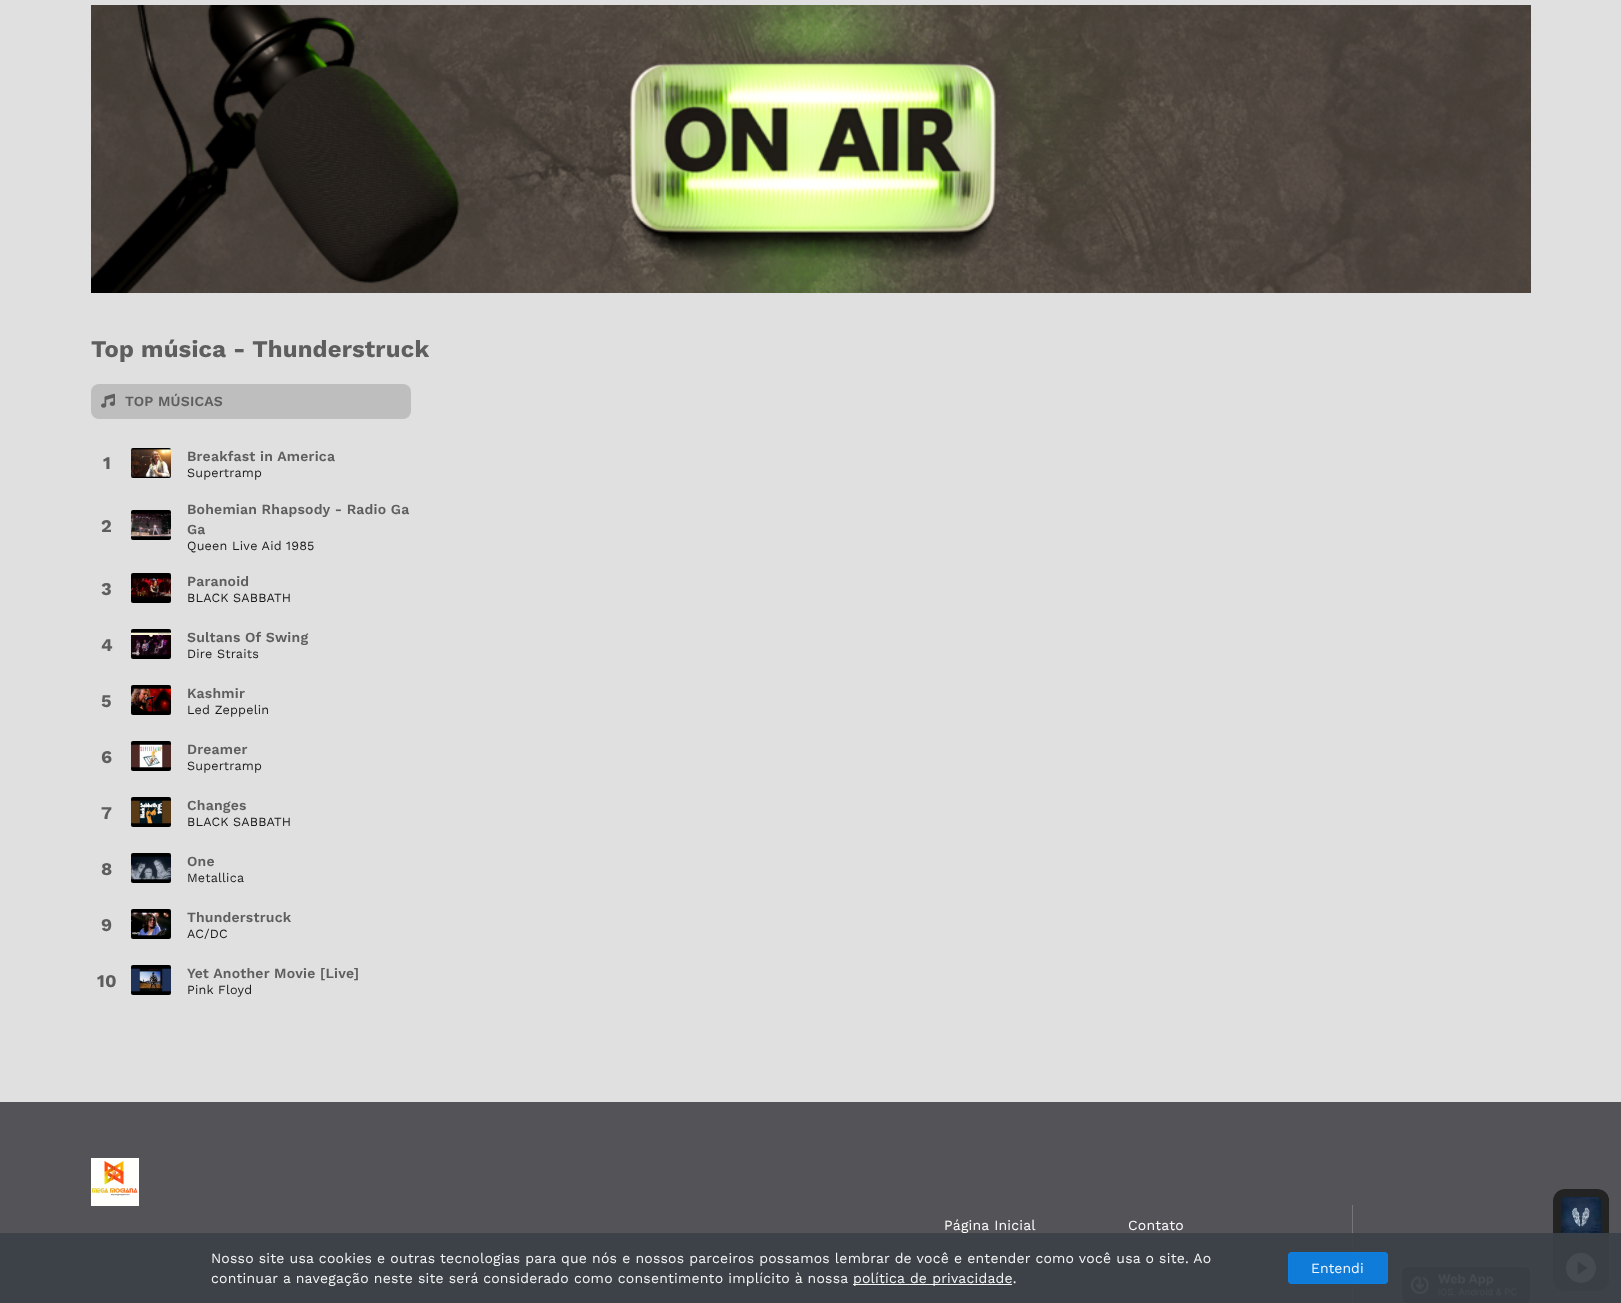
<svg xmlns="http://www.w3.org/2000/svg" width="1621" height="1303">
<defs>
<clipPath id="clip1"><rect x="1553" y="1189" width="56" height="102" rx="12"/></clipPath>
</defs>
<rect width="100%" height="100%" fill="#e0e0e0"/>
<image x="91" y="5" width="1440" height="288" href="media/1.png"/>
<text x="91" y="357" style="font-family:Work Sans;font-size:23.75px;font-weight:bold;letter-spacing:0.21px;fill:#5e5e5e">Top música - Thunderstruck</text>
<rect x="91" y="384" width="320" height="35" rx="8" fill="#bebebe"/>
<image x="101" y="393" width="14" height="15" href="media/2.png"/>
<text x="125" y="406" style="font-family:Work Sans;font-size:14px;font-weight:600;letter-spacing:0.21px;fill:#5e5e5e">TOP MÚSICAS</text>
<text x="103" y="469" style="font-family:Work Sans;font-size:18px;font-weight:bold;letter-spacing:0.21px;fill:#5e5e5e">1</text>
<image x="131" y="448" width="40" height="30" href="media/3.png"/>
<text x="187" y="461" style="font-family:Work Sans;font-size:14px;font-weight:600;letter-spacing:0.21px;fill:#5e5e5e">Breakfast in America</text>
<text x="187" y="477" style="font-family:Work Sans;font-size:12.6px;letter-spacing:0.21px;fill:#1a1a1a">Supertramp</text>
<text x="101" y="532" style="font-family:Work Sans;font-size:18px;font-weight:bold;letter-spacing:0.21px;fill:#5e5e5e">2</text>
<image x="131" y="510" width="40" height="30" href="media/4.png"/>
<text x="187" y="514" style="font-family:Work Sans;font-size:14px;font-weight:600;letter-spacing:0.21px;fill:#5e5e5e">Bohemian Rhapsody - Radio Ga</text>
<text x="187" y="534" style="font-family:Work Sans;font-size:14px;font-weight:600;letter-spacing:0.21px;fill:#5e5e5e">Ga</text>
<text x="187" y="550" style="font-family:Work Sans;font-size:12.6px;letter-spacing:0.21px;fill:#1a1a1a">Queen Live Aid 1985</text>
<text x="101" y="595" style="font-family:Work Sans;font-size:18px;font-weight:bold;letter-spacing:0.21px;fill:#5e5e5e">3</text>
<image x="131" y="573" width="40" height="30" href="media/5.png"/>
<text x="187" y="586" style="font-family:Work Sans;font-size:14px;font-weight:600;letter-spacing:0.21px;fill:#5e5e5e">Paranoid</text>
<text x="187" y="602" style="font-family:Work Sans;font-size:12.6px;letter-spacing:0.21px;fill:#1a1a1a">BLACK SABBATH</text>
<text x="101" y="651" style="font-family:Work Sans;font-size:18px;font-weight:bold;letter-spacing:0.21px;fill:#5e5e5e">4</text>
<image x="131" y="629" width="40" height="30" href="media/6.png"/>
<text x="187" y="642" style="font-family:Work Sans;font-size:14px;font-weight:600;letter-spacing:0.21px;fill:#5e5e5e">Sultans Of Swing</text>
<text x="187" y="658" style="font-family:Work Sans;font-size:12.6px;letter-spacing:0.21px;fill:#1a1a1a">Dire Straits</text>
<text x="101" y="707" style="font-family:Work Sans;font-size:18px;font-weight:bold;letter-spacing:0.21px;fill:#5e5e5e">5</text>
<image x="131" y="685" width="40" height="30" href="media/7.png"/>
<text x="187" y="698" style="font-family:Work Sans;font-size:14px;font-weight:600;letter-spacing:0.21px;fill:#5e5e5e">Kashmir</text>
<text x="187" y="714" style="font-family:Work Sans;font-size:12.6px;letter-spacing:0.21px;fill:#1a1a1a">Led Zeppelin</text>
<text x="101" y="763" style="font-family:Work Sans;font-size:18px;font-weight:bold;letter-spacing:0.21px;fill:#5e5e5e">6</text>
<image x="131" y="741" width="40" height="30" href="media/8.png"/>
<text x="187" y="754" style="font-family:Work Sans;font-size:14px;font-weight:600;letter-spacing:0.21px;fill:#5e5e5e">Dreamer</text>
<text x="187" y="770" style="font-family:Work Sans;font-size:12.6px;letter-spacing:0.21px;fill:#1a1a1a">Supertramp</text>
<text x="101" y="819" style="font-family:Work Sans;font-size:18px;font-weight:bold;letter-spacing:0.21px;fill:#5e5e5e">7</text>
<image x="131" y="797" width="40" height="30" href="media/9.png"/>
<text x="187" y="810" style="font-family:Work Sans;font-size:14px;font-weight:600;letter-spacing:0.21px;fill:#5e5e5e">Changes</text>
<text x="187" y="826" style="font-family:Work Sans;font-size:12.6px;letter-spacing:0.21px;fill:#1a1a1a">BLACK SABBATH</text>
<text x="101" y="875" style="font-family:Work Sans;font-size:18px;font-weight:bold;letter-spacing:0.21px;fill:#5e5e5e">8</text>
<image x="131" y="853" width="40" height="30" href="media/10.png"/>
<text x="187" y="866" style="font-family:Work Sans;font-size:14px;font-weight:600;letter-spacing:0.21px;fill:#5e5e5e">One</text>
<text x="187" y="882" style="font-family:Work Sans;font-size:12.6px;letter-spacing:0.21px;fill:#1a1a1a">Metallica</text>
<text x="101" y="931" style="font-family:Work Sans;font-size:18px;font-weight:bold;letter-spacing:0.21px;fill:#5e5e5e">9</text>
<image x="131" y="909" width="40" height="30" href="media/11.png"/>
<text x="187" y="922" style="font-family:Work Sans;font-size:14px;font-weight:600;letter-spacing:0.21px;fill:#5e5e5e">Thunderstruck</text>
<text x="187" y="938" style="font-family:Work Sans;font-size:12.6px;letter-spacing:0.21px;fill:#1a1a1a">AC/DC</text>
<text x="97" y="987" style="font-family:Work Sans;font-size:18px;font-weight:bold;letter-spacing:0.21px;fill:#5e5e5e">10</text>
<image x="131" y="965" width="40" height="30" href="media/12.png"/>
<text x="187" y="978" style="font-family:Work Sans;font-size:14px;font-weight:600;letter-spacing:0.21px;fill:#5e5e5e">Yet Another Movie [Live]</text>
<text x="187" y="994" style="font-family:Work Sans;font-size:12.6px;letter-spacing:0.21px;fill:#1a1a1a">Pink Floyd</text>
<rect y="1102" width="1621" height="201" fill="#545458"/>
<image x="91" y="1158" width="48" height="48" href="media/13.png"/>
<rect x="1352" y="1205" width="1" height="98" fill="#767679"/>
<text x="944" y="1230" style="font-family:Work Sans;font-size:14px;letter-spacing:0.21px;fill:#fff">Página Inicial</text>
<text x="1128" y="1230" style="font-family:Work Sans;font-size:14px;letter-spacing:0.21px;fill:#fff">Contato</text>
<image x="1401" y="1266" width="130" height="37" href="media/14.png"/>
<path d="M1565 1189h32c6.5 0 12 5.5 12 12v44h-56v-44c0-6.5 5.5-12 12-12z" fill="#232323"/>
<path d="M1553 1245h56v34c0 6.5-5.5 12-12 12h-32c-6.5 0-12-5.5-12-12z" fill="#151515"/>
<g clip-path="url(#clip1)">
<rect x="1601" y="1189" width="8" height="56" fill="#232323"/>
<rect x="1601" y="1245" width="8" height="46" fill="#151515"/>
</g>
<image x="1561" y="1197" width="40" height="40" href="media/15.png"/>
<circle cx="1581" cy="1268" r="15" fill="#fff"/>
<image x="1577" y="1261" width="11" height="14" href="media/16.png"/>
<rect y="1233" width="1621" height="70" fill="#3c4148f2"/>
<text x="211" y="1263" style="font-family:Work Sans;font-size:14px;letter-spacing:0.21px;fill:#f5f6f6">Nosso site usa cookies e outras tecnologias para que nós e nossos parceiros possamos lembrar de você e entender como você usa o site. Ao</text>
<text x="211" y="1283" style="font-family:Work Sans;font-size:14px;letter-spacing:0.21px;fill:#f5f6f6">continuar a navegação neste site será considerado como consentimento implícito à nossa</text>
<rect x="853" y="1284" width="159" height="1" fill="#f6f6f7"/>
<text x="853" y="1283" style="font-family:Work Sans;font-size:14px;letter-spacing:0.21px;fill:#f5f6f6">política de privacidade.</text>
<rect x="1288" y="1252" width="100" height="32" rx="4" fill="#107cda"/>
<rect x="1288.5" y="1252.5" width="99" height="31" rx="3.5" fill="none" stroke="#0e7fe2f2"/>
<text x="1311" y="1273" style="font-family:Work Sans;font-size:14px;fill:#f3f8fd">Entendi</text>
</svg>
